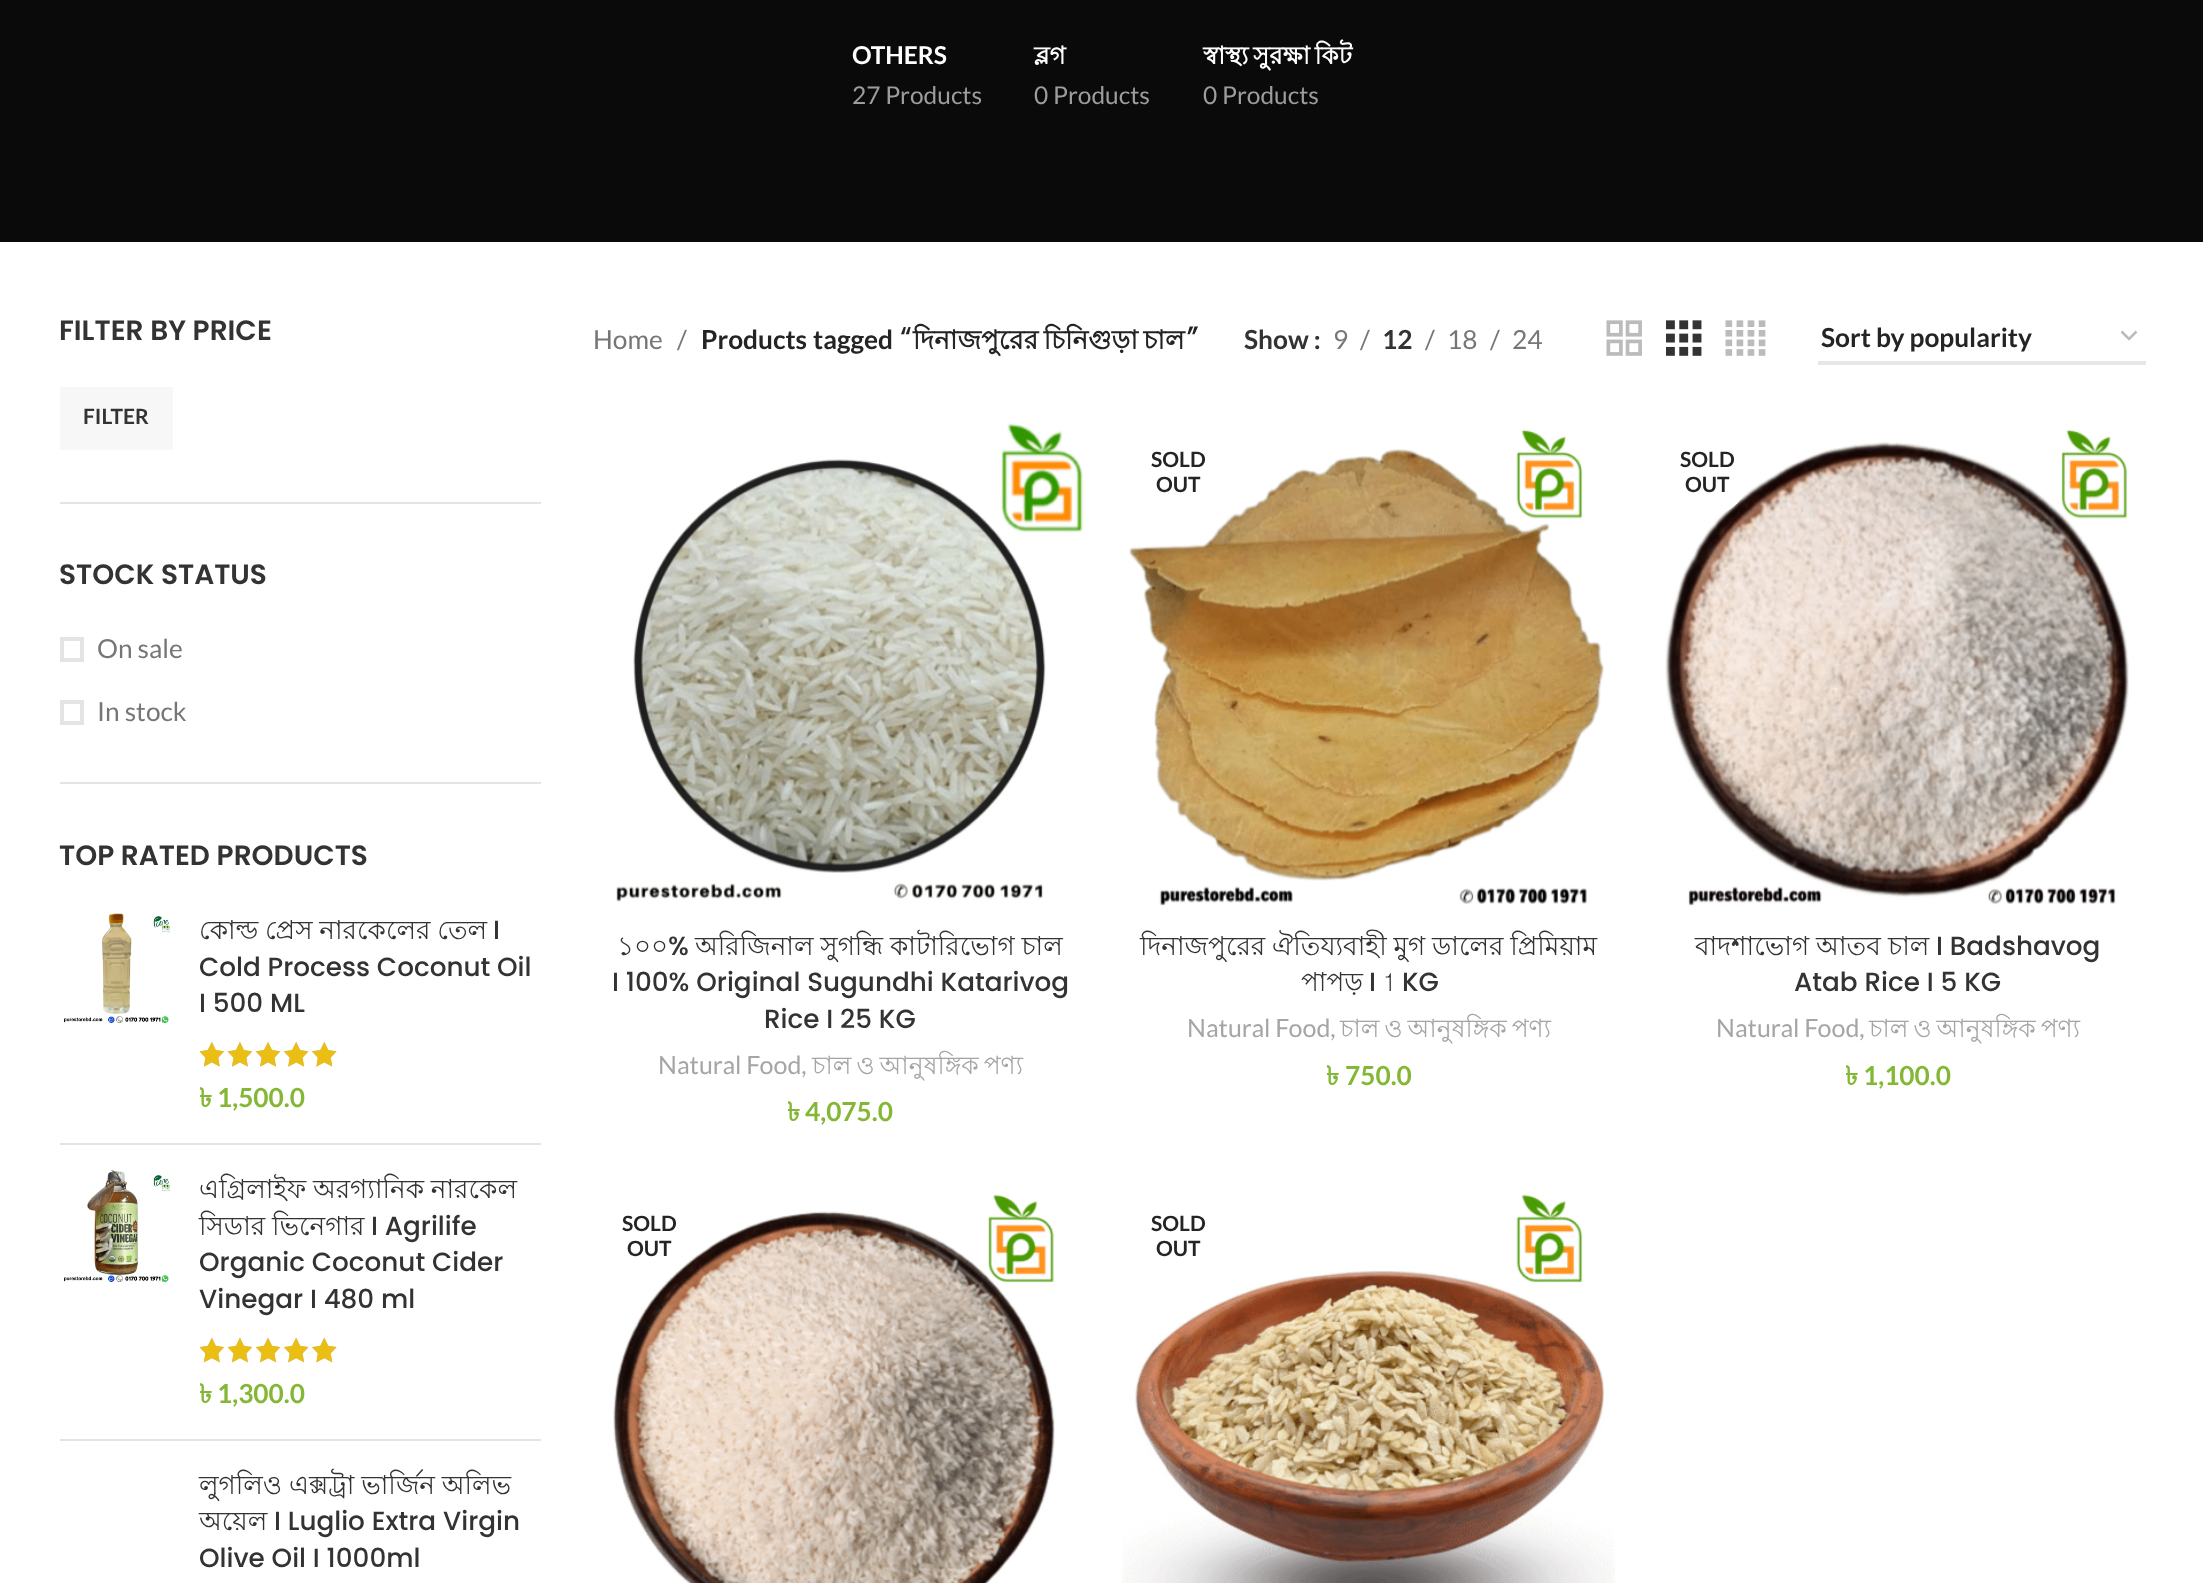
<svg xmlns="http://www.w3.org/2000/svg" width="2203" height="1583">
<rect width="100%" height="100%" fill="#fff"/>
<rect width="2203" height="242" fill="#0a0a0a"/>
<text x="852" y="64" style="font-family:Lato;font-size:24.5px;font-weight:bold;fill:#fff">OTHERS</text>
<text x="852" y="104" style="font-family:Lato;font-size:24.5px;fill:#9d9d9d">27 Products</text>
<text x="1034" y="64" style="font-family:Lohit Bengali;font-size:24.5px;font-weight:bold;fill:#fff">ব্লগ</text>
<text x="1034" y="104" style="font-family:Lato;font-size:24.5px;fill:#9d9d9d">0 Products</text>
<text x="1203" y="64" word-spacing="-2" style="font-family:Lohit Bengali;font-size:24.5px;font-weight:bold;fill:#fff">স্বাস্থ্য সুরক্ষা কিট</text>
<text x="1203" y="104" style="font-family:Lato;font-size:24.5px;fill:#9d9d9d">0 Products</text>
<rect x="60" y="502" width="481" height="2" fill="#e4e4e4"/>
<text x="59" y="340" style="font-family:Poppins;font-size:28px;font-weight:600;fill:#333">FILTER BY PRICE</text>
<rect x="60" y="387" width="113" height="63" fill="#f7f7f7"/>
<text x="83" y="424" style="font-family:Lato;font-size:21px;font-weight:bold;fill:#333">FILTER</text>
<rect x="60" y="782" width="481" height="2" fill="#e4e4e4"/>
<text x="59" y="584" style="font-family:Poppins;font-size:28px;font-weight:600;fill:#333">STOCK STATUS</text>
<rect x="62" y="639" width="20" height="21" fill="none" stroke="#e4e4e4" stroke-width="4"/>
<text x="97" y="658" style="font-family:Lato;font-size:26.25px;fill:#767676">On sale</text>
<rect x="62" y="702" width="20" height="21" fill="none" stroke="#e4e4e4" stroke-width="4"/>
<text x="97" y="721" style="font-family:Lato;font-size:26.25px;fill:#767676">In stock</text>
<text x="59" y="865" style="font-family:Poppins;font-size:28px;font-weight:600;fill:#333">TOP RATED PRODUCTS</text>
<rect x="60" y="1143" width="481" height="2" fill="#e4e4e4"/>
<image x="64" y="913" width="106" height="110" href="media/1.png"/>
<text x="199" y="939" word-spacing="-0.5" style="font-family:Lohit Bengali;font-size:26.25px;fill:#333">কোল্ড প্রেস নারকেলের তেল</text>
<text x="493" y="939" style="font-family:Poppins;font-size:26.25px;font-weight:500;fill:#333">I</text>
<text x="199" y="976" style="font-family:Poppins;font-size:26.25px;font-weight:500;fill:#333">Cold Process Coconut Oil</text>
<text x="199" y="1012" style="font-family:Poppins;font-size:26.25px;font-weight:500;fill:#333">I 500 ML</text>
<image x="199" y="1042" width="138" height="25" href="media/2.png"/>
<image x="200" y="1042" width="137" height="25" href="media/3.png"/>
<text x="199" y="1107" style="font-family:Lohit Bengali;font-size:26.25px;font-weight:bold;fill:#83b735">৳</text>
<text x="217" y="1107" style="font-family:Lato;font-size:26.25px;font-weight:bold;fill:#83b735">1,500.0</text>
<rect x="60" y="1439" width="481" height="2" fill="#e4e4e4"/>
<image x="64" y="1170" width="106" height="113" href="media/4.png"/>
<text x="199" y="1198" word-spacing="-0.5" style="font-family:Lohit Bengali;font-size:26.25px;fill:#333">এগ্রিলাইফ অরগ্যানিক নারকেল</text>
<text x="199" y="1235" style="font-family:Lohit Bengali;font-size:26.25px;fill:#333">সিডার</text>
<text x="272" y="1235" style="font-family:Lohit Bengali;font-size:26.25px;fill:#333">ভিনেগার</text>
<text x="371" y="1235" style="font-family:Poppins;font-size:26.25px;font-weight:500;fill:#333">I Agrilife</text>
<text x="199" y="1271" style="font-family:Poppins;font-size:26.25px;font-weight:500;fill:#333">Organic Coconut Cider</text>
<text x="199" y="1308" style="font-family:Poppins;font-size:26.25px;font-weight:500;fill:#333">Vinegar I 480 ml</text>
<image x="199" y="1338" width="138" height="25" href="media/6.png"/>
<image x="200" y="1337" width="137" height="26" href="media/5.png"/>
<text x="199" y="1403" style="font-family:Lohit Bengali;font-size:26.25px;font-weight:bold;fill:#83b735">৳</text>
<text x="217" y="1403" style="font-family:Lato;font-size:26.25px;font-weight:bold;fill:#83b735">1,300.0</text>
<text x="199" y="1494" word-spacing="-0.5" style="font-family:Lohit Bengali;font-size:26.25px;fill:#333">লুগলিও এক্সট্রা ভার্জিন অলিভ</text>
<text x="199" y="1530" style="font-family:Lohit Bengali;font-size:26.25px;fill:#333">অয়েল</text>
<text x="274" y="1530" style="font-family:Poppins;font-size:26.25px;font-weight:500;fill:#333">I Luglio Extra Virgin</text>
<text x="199" y="1567" style="font-family:Poppins;font-size:26.25px;font-weight:500;fill:#333">Olive Oil I 1000ml</text>
<text x="593" y="349" style="font-family:Lato;font-size:26.25px;fill:#767676">Home</text>
<text x="677" y="349" style="font-family:Lato;font-size:26.25px;fill:#767676">/</text>
<text x="701" y="349" style="font-family:Lato;font-size:26.25px;font-weight:bold;fill:#242424">Products</text>
<text x="813" y="349" style="font-family:Lato;font-size:26.25px;font-weight:bold;fill:#242424">tagged</text>
<text x="898" y="349" word-spacing="-2" style="font-family:Lohit Bengali;font-size:26.25px;font-weight:bold;fill:#242424">“দিনাজপুরের চিনিগুড়া চাল”</text>
<text x="1244" y="349" style="font-family:Lato;font-size:26.25px;font-weight:bold;fill:#333">Show :</text>
<text x="1333" y="349" style="font-family:Lato;font-size:26.25px;fill:#767676">9</text>
<text x="1360" y="349" style="font-family:Lato;font-size:26.25px;fill:#767676">/</text>
<text x="1382" y="349" style="font-family:Lato;font-size:26.25px;font-weight:bold;fill:#333">12</text>
<text x="1425" y="349" style="font-family:Lato;font-size:26.25px;fill:#767676">/</text>
<text x="1447" y="349" style="font-family:Lato;font-size:26.25px;fill:#767676">18</text>
<text x="1490" y="349" style="font-family:Lato;font-size:26.25px;fill:#767676">/</text>
<text x="1512" y="349" style="font-family:Lato;font-size:26.25px;fill:#767676">24</text>
<image x="1606" y="320" width="36" height="36" href="media/7.png"/>
<image x="1666" y="320" width="36" height="36" href="media/8.png"/>
<image x="1725" y="320" width="41" height="36" href="media/9.png"/>
<path d="M2121.5 331.5l7.5 7.5l7.5-7.5" fill="none" stroke="#bbb" stroke-width="2.5"/>
<rect x="1818" y="361" width="328" height="4" fill="#e6e6e6"/>
<text x="1821" y="347" style="font-family:Lato;font-size:26.25px;font-weight:bold;fill:#242424">Sort by popularity</text>
<image x="616" y="423" width="468" height="479" href="media/10.png"/>
<text x="617" y="955" style="font-family:Lohit Bengali;font-size:26.25px;fill:#333">১০০</text>
<text x="668" y="955" style="font-family:Poppins;font-size:26.25px;font-weight:500;fill:#333">%</text>
<text x="695" y="955" word-spacing="-0.5" style="font-family:Lohit Bengali;font-size:26.25px;fill:#333">অরিজিনাল সুগন্ধি কাটারিভোগ চাল</text>
<text x="612" y="991" style="font-family:Poppins;font-size:26.25px;font-weight:500;fill:#333">I 100% Original Sugundhi Katarivog</text>
<text x="764" y="1028" style="font-family:Poppins;font-size:26.25px;font-weight:500;fill:#333">Rice I 25 KG</text>
<text x="658" y="1074" style="font-family:Lato;font-size:25px;fill:#a5a5a5">Natural Food,</text>
<text x="812" y="1074" word-spacing="-2" style="font-family:Lohit Bengali;font-size:25px;fill:#a5a5a5">চাল ও আনুষঙ্গিক পণ্য</text>
<text x="787" y="1121" style="font-family:Lohit Bengali;font-size:26.25px;font-weight:bold;fill:#83b735">৳</text>
<text x="805" y="1121" style="font-family:Lato;font-size:26.25px;font-weight:bold;fill:#83b735">4,075.0</text>
<image x="1129" y="429" width="475" height="477" href="media/11.png"/>
<text x="1151" y="467" style="font-family:Lato;font-size:21px;font-weight:bold;fill:#242424">SOLD</text>
<text x="1156" y="492" style="font-family:Lato;font-size:21px;font-weight:bold;fill:#242424">OUT</text>
<text x="1140" y="955" word-spacing="-0.5" style="font-family:Lohit Bengali;font-size:26.25px;fill:#333">দিনাজপুরের ঐতিয্যবাহী মুগ ডালের প্রিমিয়াম</text>
<text x="1301" y="991" style="font-family:Lohit Bengali;font-size:26.25px;fill:#333">পাপড়</text>
<text x="1369" y="991" style="font-family:Poppins;font-size:26.25px;font-weight:500;fill:#333">I</text>
<text x="1381" y="991" style="font-family:Lohit Bengali;font-size:26.25px;fill:#333">1</text>
<text x="1402" y="991" style="font-family:Poppins;font-size:26.25px;font-weight:500;fill:#333">KG</text>
<text x="1187" y="1037" style="font-family:Lato;font-size:25px;fill:#a5a5a5">Natural Food,</text>
<text x="1340" y="1037" word-spacing="-2" style="font-family:Lohit Bengali;font-size:25px;fill:#a5a5a5">চাল ও আনুষঙ্গিক পণ্য</text>
<text x="1326" y="1085" style="font-family:Lohit Bengali;font-size:26.25px;font-weight:bold;fill:#83b735">৳</text>
<text x="1345" y="1085" style="font-family:Lato;font-size:26.25px;font-weight:bold;fill:#83b735">750.0</text>
<image x="1665" y="429" width="464" height="477" href="media/12.png"/>
<circle cx="1706.5" cy="472.5" r="43.5" fill="#fff"/>
<text x="1680" y="467" style="font-family:Lato;font-size:21px;font-weight:bold;fill:#242424">SOLD</text>
<text x="1685" y="492" style="font-family:Lato;font-size:21px;font-weight:bold;fill:#242424">OUT</text>
<text x="1695" y="955" style="font-family:Lohit Bengali;font-size:26.25px;fill:#333">বাদশাভোগ</text>
<text x="1816" y="955" style="font-family:Lohit Bengali;font-size:26.25px;fill:#333">আতব</text>
<text x="1888" y="955" style="font-family:Lohit Bengali;font-size:26.25px;fill:#333">চাল</text>
<text x="1936" y="955" style="font-family:Poppins;font-size:26.25px;font-weight:500;fill:#333">I Badshavog</text>
<text x="1794" y="991" style="font-family:Poppins;font-size:26.25px;font-weight:500;fill:#333">Atab Rice I 5 KG</text>
<text x="1716" y="1037" style="font-family:Lato;font-size:25px;fill:#a5a5a5">Natural Food,</text>
<text x="1869" y="1037" word-spacing="-2" style="font-family:Lohit Bengali;font-size:25px;fill:#a5a5a5">চাল ও আনুষঙ্গিক পণ্য</text>
<text x="1845" y="1085" style="font-family:Lohit Bengali;font-size:26.25px;font-weight:bold;fill:#83b735">৳</text>
<text x="1863" y="1085" style="font-family:Lato;font-size:26.25px;font-weight:bold;fill:#83b735">1,100.0</text>
<image x="613" y="1194" width="442" height="389" href="media/13.png"/>
<text x="622" y="1231" style="font-family:Lato;font-size:21px;font-weight:bold;fill:#242424">SOLD</text>
<text x="627" y="1256" style="font-family:Lato;font-size:21px;font-weight:bold;fill:#242424">OUT</text>
<image x="1122" y="1194" width="493" height="389" href="media/14.png"/>
<text x="1151" y="1231" style="font-family:Lato;font-size:21px;font-weight:bold;fill:#242424">SOLD</text>
<text x="1156" y="1256" style="font-family:Lato;font-size:21px;font-weight:bold;fill:#242424">OUT</text>
</svg>
